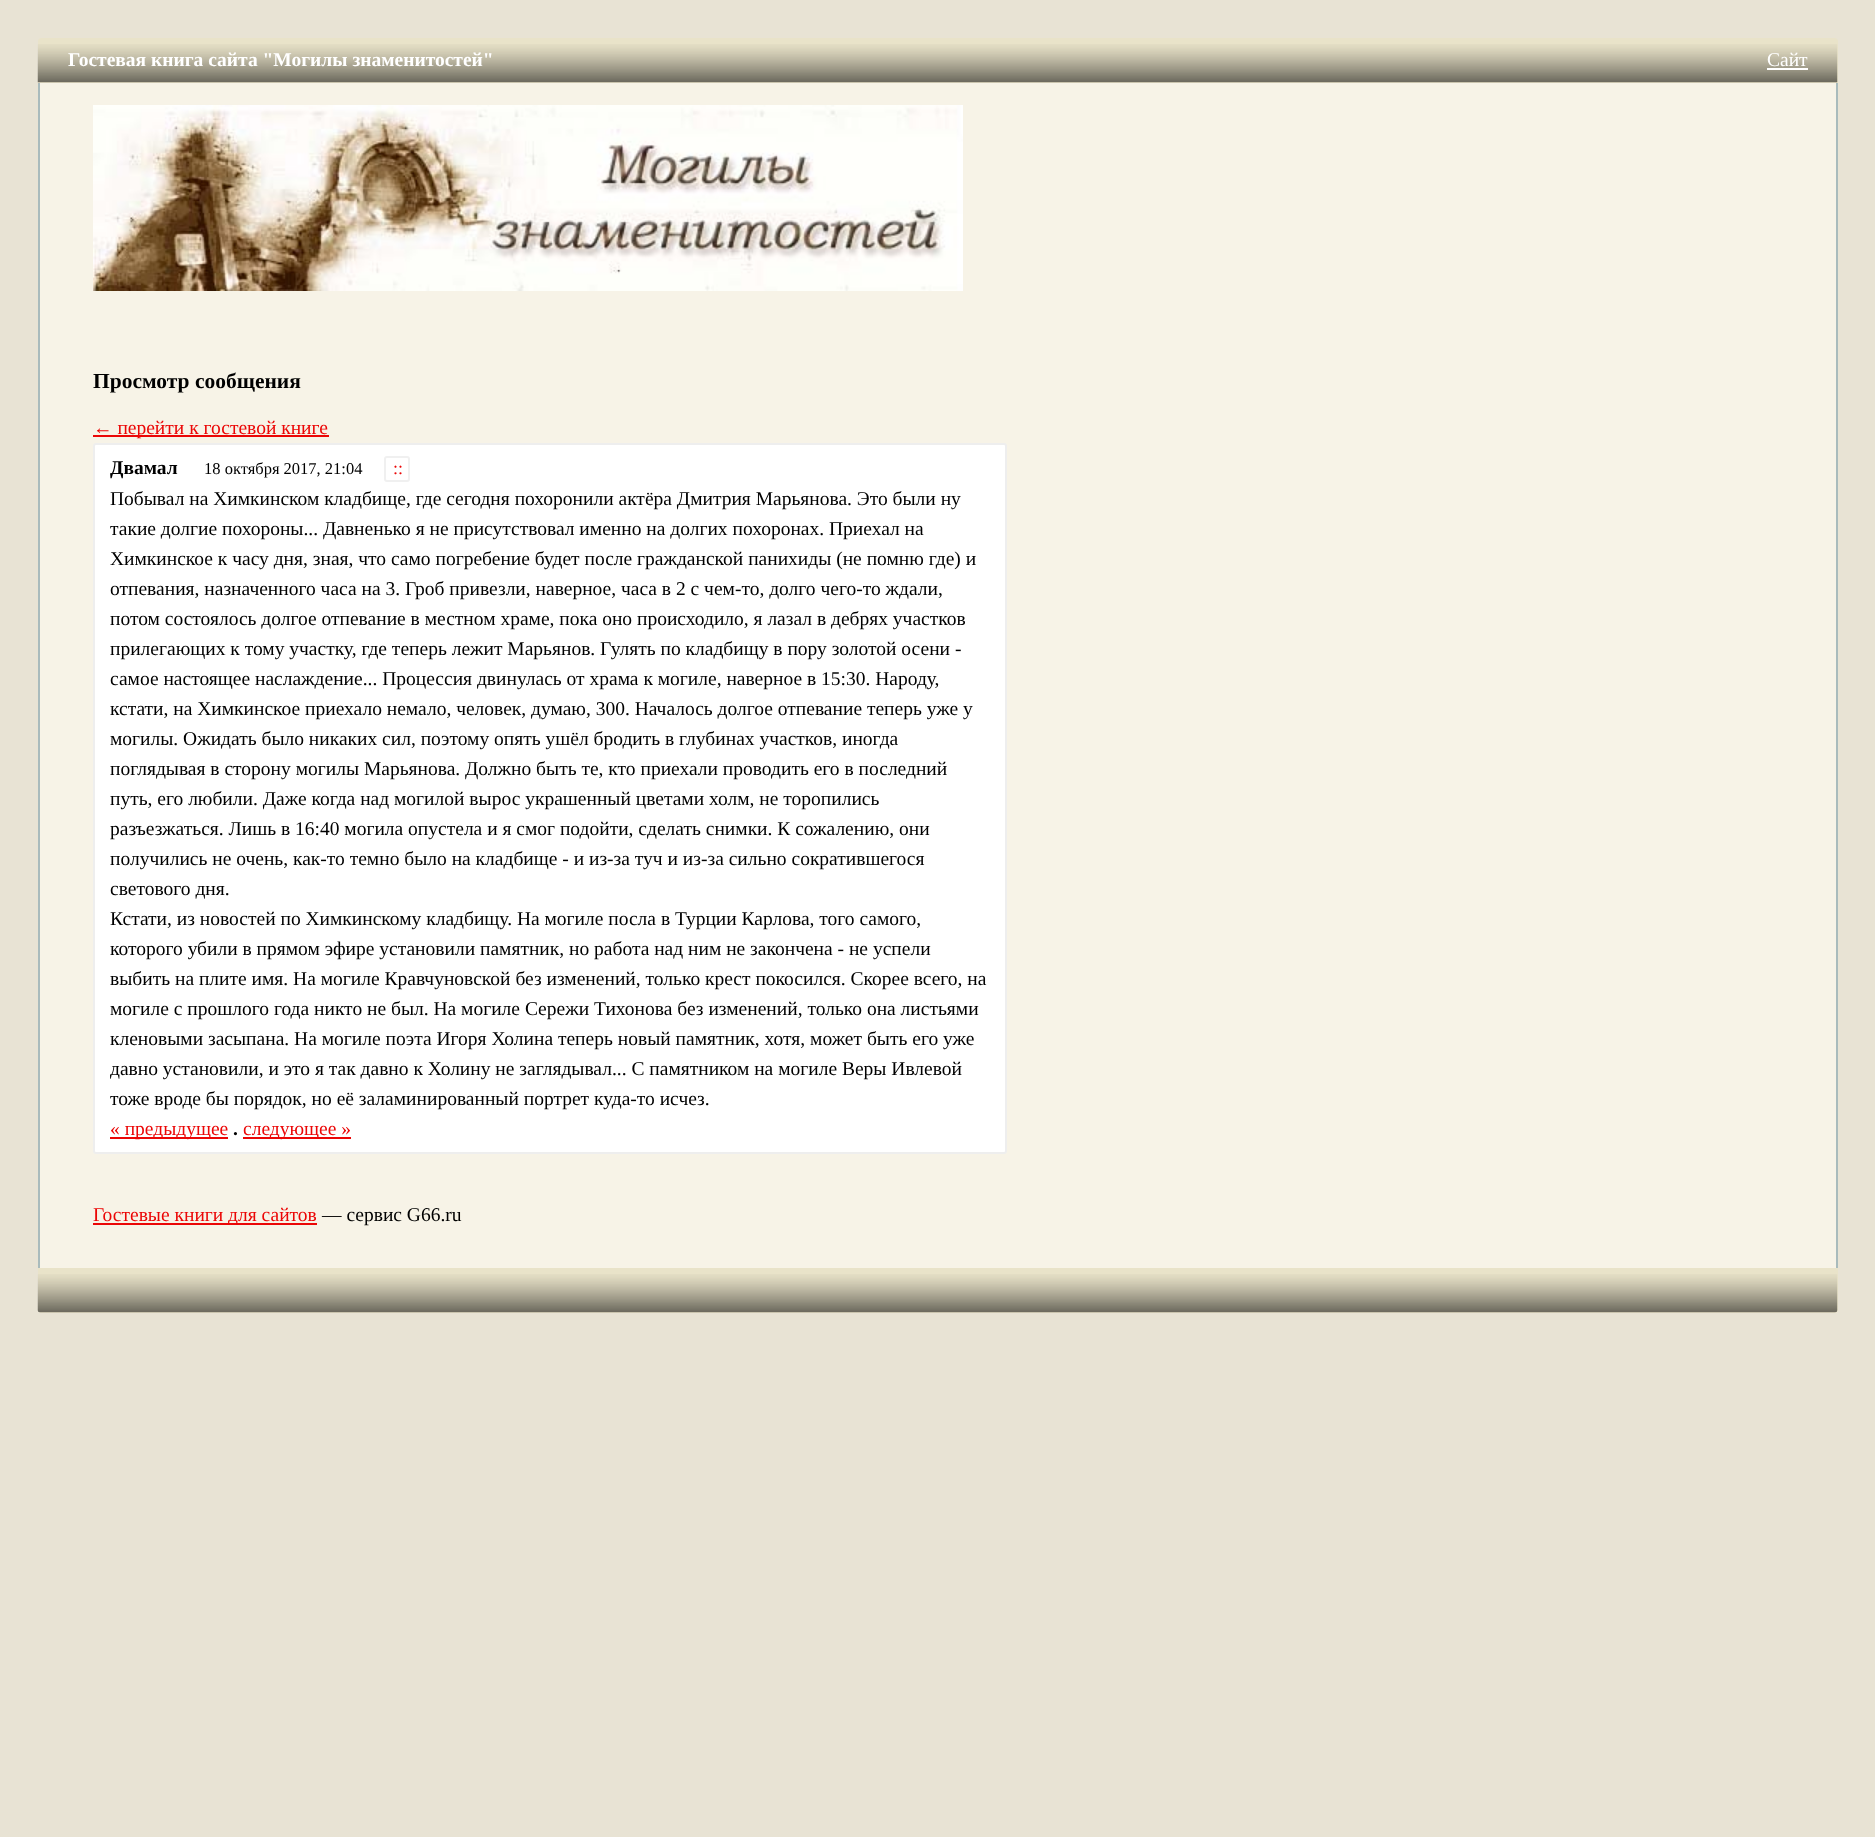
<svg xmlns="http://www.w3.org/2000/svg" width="1875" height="1837">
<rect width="100%" height="100%" fill="#e8e3d4"/>
<path d="M41 38h1794c1.5 0 3 1.5 3 3v42h-1800v-42c0-1.5 1.5-3 3-3z" fill="#e9e3c9"/>
<image x="37" y="44" width="1801" height="39" href="media/1.png"/>
<text x="68" y="66" style="font-family:Liberation Serif;font-size:19.5px;font-weight:bold;fill:#fff">Гостевая книга сайта "Могилы знаменитостей"</text>
<text x="1767" y="66" style="font-family:Liberation Serif;font-size:19.5px;fill:#fff">Сайт</text>
<rect x="1767" y="68" width="41" height="2" fill="#fff"/>
<rect x="40" y="83" width="1796" height="1185" fill="#f7f3e7"/>
<rect x="1836" y="83" width="2" height="1185" fill="#a9bbbc"/>
<rect x="38" y="83" width="2" height="1185" fill="#a9bbbc"/>
<image x="93" y="105" width="870" height="186" href="media/2.png"/>
<text x="93" y="388" style="font-family:Liberation Serif;font-size:21.5px;font-weight:bold;fill:#000">Просмотр сообщения</text>
<rect x="93" y="435" width="236" height="2" fill="#eb0606"/>
<text x="93" y="434" style="font-family:Liberation Serif;font-size:19.5px;fill:#eb0606">← перейти к гостевой книге</text>
<rect x="94" y="444" width="912" height="709" rx="2" fill="#fff" stroke="#eee" stroke-width="2"/>
<text x="110" y="474" style="font-family:Liberation Serif;font-size:19.5px;font-weight:bold;fill:#000">Двамал</text>
<text x="204" y="474" style="font-family:Liberation Serif;font-size:16.5px;fill:#000">18 октября 2017, 21:04</text>
<rect x="385" y="457" width="24" height="24" rx="2" fill="none" stroke="#f0f0f0" stroke-width="2"/>
<text x="393" y="474" style="font-family:Liberation Serif;font-size:18px;fill:#eb0606">::</text>
<text x="110" y="505" style="font-family:Liberation Serif;font-size:19.5px;fill:#000">Побывал на Химкинском кладбище, где сегодня похоронили актёра Дмитрия Марьянова. Это были ну</text>
<text x="110" y="535" style="font-family:Liberation Serif;font-size:19.5px;fill:#000">такие долгие похороны... Давненько я не присутствовал именно на долгих похоронах. Приехал на</text>
<text x="110" y="565" style="font-family:Liberation Serif;font-size:19.5px;fill:#000">Химкинское к часу дня, зная, что само погребение будет после гражданской панихиды (не помню где) и</text>
<text x="110" y="595" style="font-family:Liberation Serif;font-size:19.5px;fill:#000">отпевания, назначенного часа на 3. Гроб привезли, наверное, часа в 2 с чем-то, долго чего-то ждали,</text>
<text x="110" y="625" style="font-family:Liberation Serif;font-size:19.5px;fill:#000">потом состоялось долгое отпевание в местном храме, пока оно происходило, я лазал в дебрях участков</text>
<text x="110" y="655" style="font-family:Liberation Serif;font-size:19.5px;fill:#000">прилегающих к тому участку, где теперь лежит Марьянов. Гулять по кладбищу в пору золотой осени -</text>
<text x="110" y="685" style="font-family:Liberation Serif;font-size:19.5px;fill:#000">самое настоящее наслаждение... Процессия двинулась от храма к могиле, наверное в 15:30. Народу,</text>
<text x="110" y="715" style="font-family:Liberation Serif;font-size:19.5px;fill:#000">кстати, на Химкинское приехало немало, человек, думаю, 300. Началось долгое отпевание теперь уже у</text>
<text x="110" y="745" style="font-family:Liberation Serif;font-size:19.5px;fill:#000">могилы. Ожидать было никаких сил, поэтому опять ушёл бродить в глубинах участков, иногда</text>
<text x="110" y="775" style="font-family:Liberation Serif;font-size:19.5px;fill:#000">поглядывая в сторону могилы Марьянова. Должно быть те, кто приехали проводить его в последний</text>
<text x="110" y="805" style="font-family:Liberation Serif;font-size:19.5px;fill:#000">путь, его любили. Даже когда над могилой вырос украшенный цветами холм, не торопились</text>
<text x="110" y="835" style="font-family:Liberation Serif;font-size:19.5px;fill:#000">разъезжаться. Лишь в 16:40 могила опустела и я смог подойти, сделать снимки. К сожалению, они</text>
<text x="110" y="865" style="font-family:Liberation Serif;font-size:19.5px;fill:#000">получились не очень, как-то темно было на кладбище - и из-за туч и из-за сильно сократившегося</text>
<text x="110" y="895" style="font-family:Liberation Serif;font-size:19.5px;fill:#000">светового дня.</text>
<text x="110" y="925" style="font-family:Liberation Serif;font-size:19.5px;fill:#000">Кстати, из новостей по Химкинскому кладбищу. На могиле посла в Турции Карлова, того самого,</text>
<text x="110" y="955" style="font-family:Liberation Serif;font-size:19.5px;fill:#000">которого убили в прямом эфире установили памятник, но работа над ним не закончена - не успели</text>
<text x="110" y="985" style="font-family:Liberation Serif;font-size:19.5px;fill:#000">выбить на плите имя. На могиле Кравчуновской без изменений, только крест покосился. Скорее всего, на</text>
<text x="110" y="1015" style="font-family:Liberation Serif;font-size:19.5px;fill:#000">могиле с прошлого года никто не был. На могиле Сережи Тихонова без изменений, только она листьями</text>
<text x="110" y="1045" style="font-family:Liberation Serif;font-size:19.5px;fill:#000">кленовыми засыпана. На могиле поэта Игоря Холина теперь новый памятник, хотя, может быть его уже</text>
<text x="110" y="1075" style="font-family:Liberation Serif;font-size:19.5px;fill:#000">давно установили, и это я так давно к Холину не заглядывал... С памятником на могиле Веры Ивлевой</text>
<text x="110" y="1105" style="font-family:Liberation Serif;font-size:19.5px;fill:#000">тоже вроде бы порядок, но её заламинированный портрет куда-то исчез.</text>
<rect x="110" y="1137" width="118" height="2" fill="#eb0606"/>
<text x="110" y="1135" style="font-family:Liberation Serif;font-size:19.5px;fill:#eb0606">« предыдущее</text>
<text x="233" y="1135" style="font-family:Liberation Serif;font-size:19.5px;font-weight:bold;fill:#000">.</text>
<rect x="243" y="1137" width="108" height="2" fill="#eb0606"/>
<text x="243" y="1135" style="font-family:Liberation Serif;font-size:19.5px;fill:#eb0606">следующее »</text>
<rect x="93" y="1223" width="224" height="2" fill="#eb0606"/>
<text x="93" y="1221" style="font-family:Liberation Serif;font-size:19.5px;fill:#eb0606">Гостевые книги для сайтов</text>
<text x="322" y="1221" style="font-family:Liberation Serif;font-size:19.5px;fill:#000">— сервис G66.ru</text>
<path d="M38 1268h1800v42c0 1.5-1.5 3-3 3h-1794c-1.5 0-3-1.5-3-3z" fill="#e9e3c9"/>
<image x="37" y="1274" width="1801" height="39" href="media/3.png"/>
</svg>
